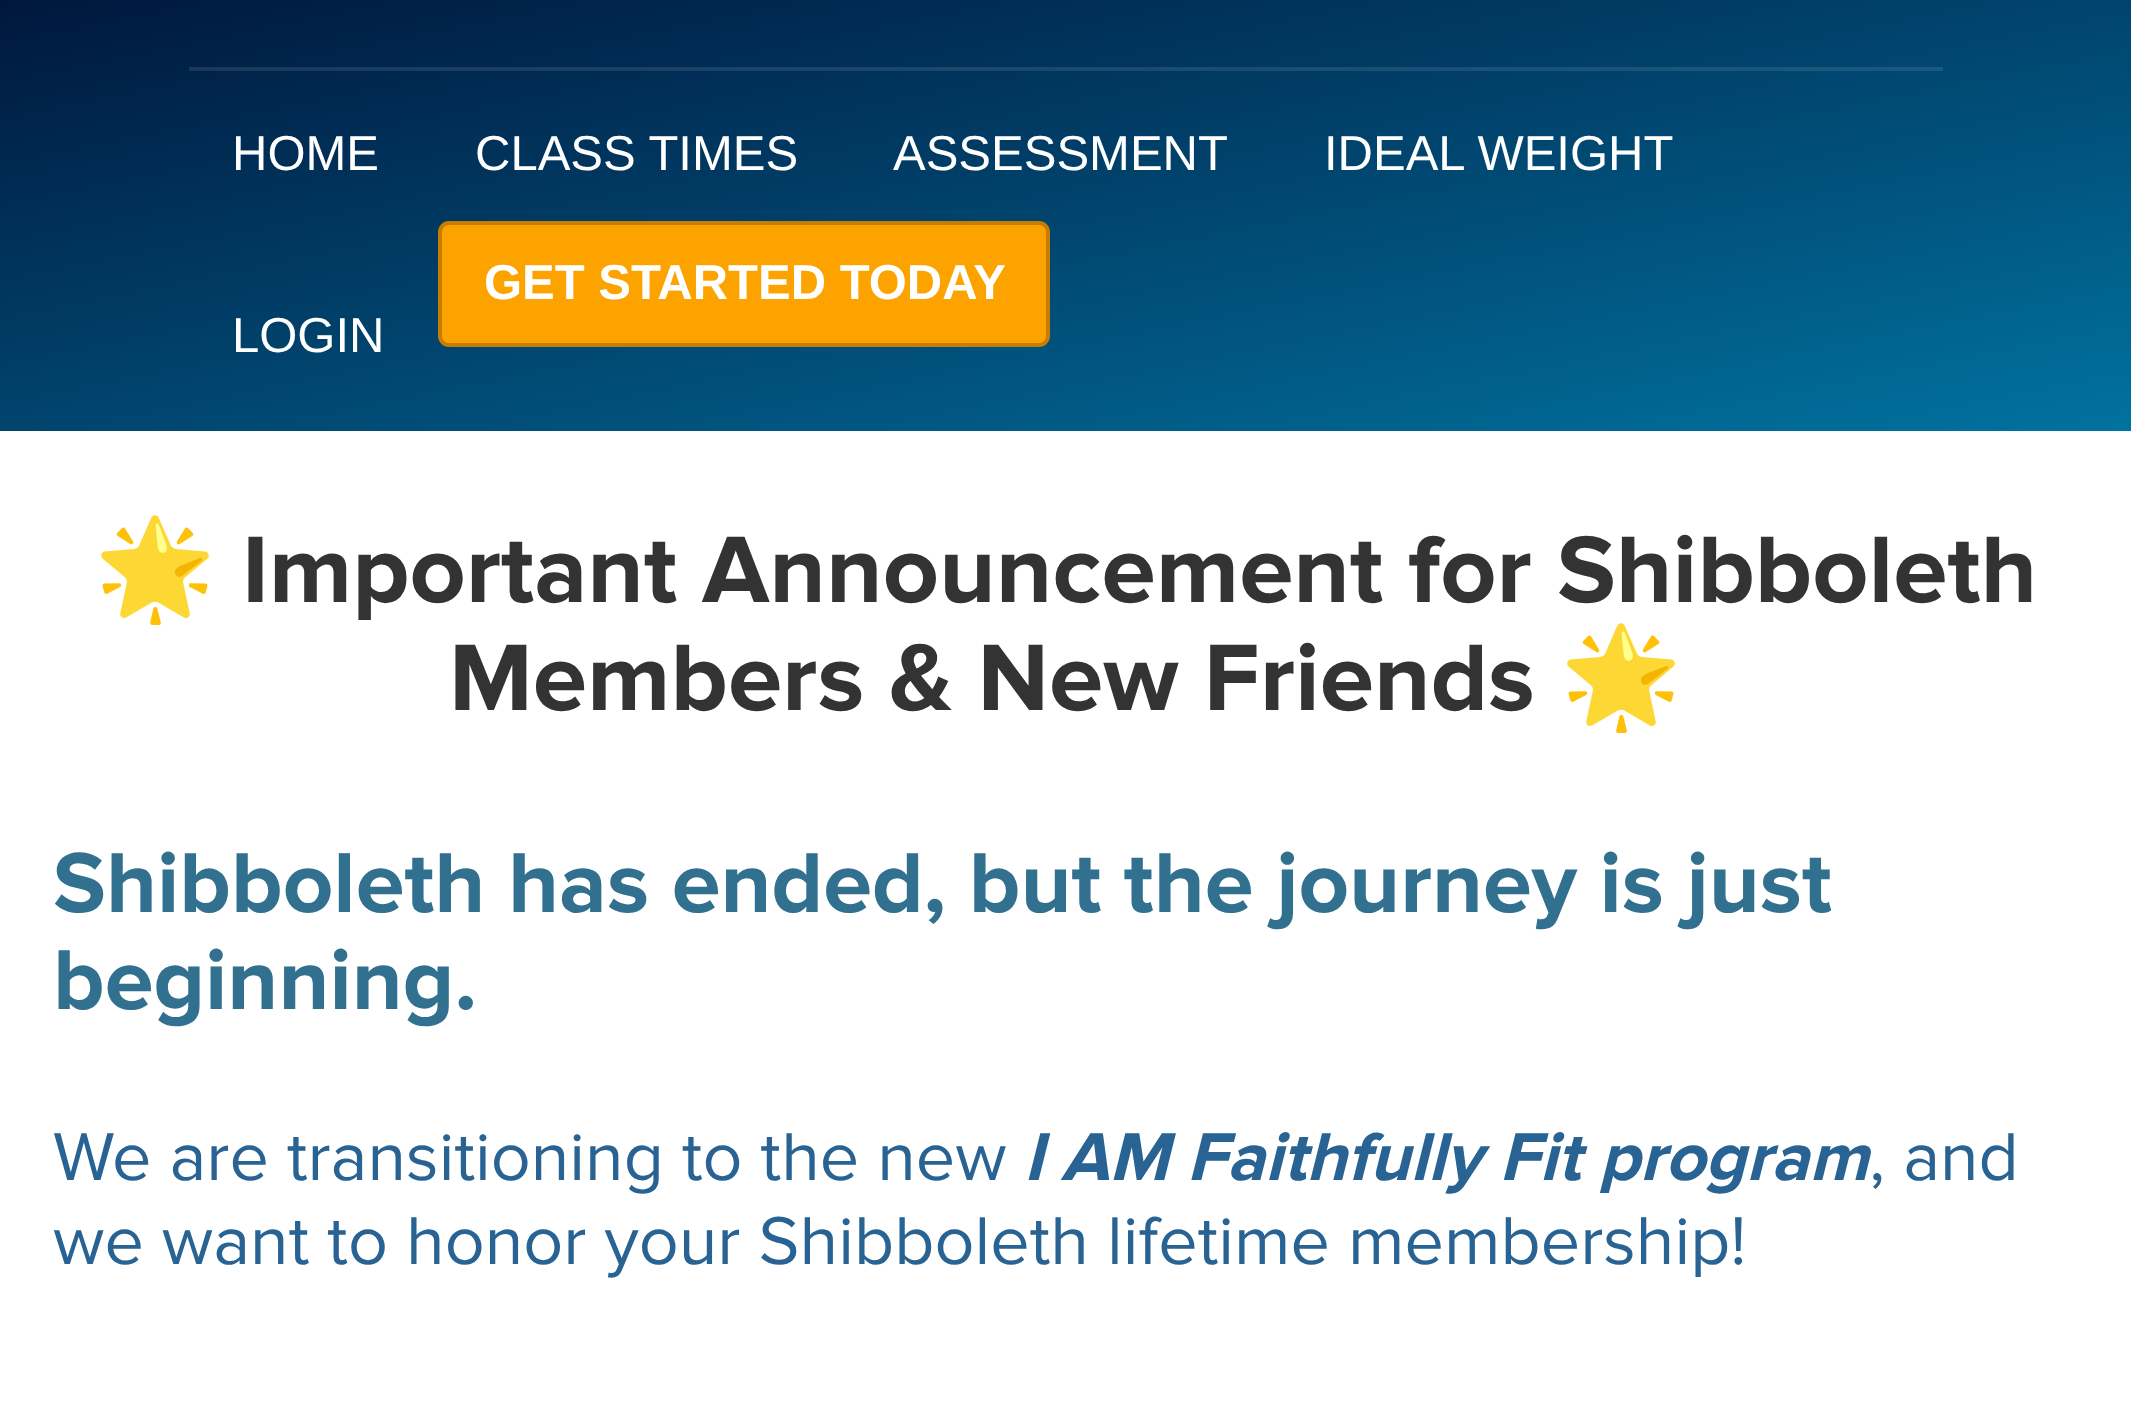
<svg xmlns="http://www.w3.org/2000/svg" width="2131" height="1412">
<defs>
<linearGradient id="g1" gradientUnits="userSpaceOnUse" x1="982" y1="-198" x2="1149" y2="629"><stop offset="0" stop-color="#00173d"/><stop offset="1" stop-color="#01729f"/></linearGradient>
<linearGradient id="g2" gradientUnits="userSpaceOnUse" x1="982" y1="-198" x2="1149" y2="629"><stop offset="0" stop-color="#1a2e50"/><stop offset="1" stop-color="#1a80a9"/></linearGradient>
</defs>
<rect width="100%" height="100%" fill="#fff"/>
<rect width="2131" height="431" fill="url(#g1)"/>
<rect x="189" y="67" width="1754" height="4" fill="url(#g2)"/>
<text x="232" y="170" style="font-family:Liberation Sans;font-size:49px;fill:#fff">HOME</text>
<text x="475" y="170" style="font-family:Liberation Sans;font-size:49px;fill:#fff">CLASS TIMES</text>
<text x="893" y="170" style="font-family:Liberation Sans;font-size:49px;fill:#fff">ASSESSMENT</text>
<text x="1324" y="170" style="font-family:Liberation Sans;font-size:49px;fill:#fff">IDEAL WEIGHT</text>
<rect x="440" y="223" width="608" height="122" rx="9" fill="#fda300" stroke="#c67d01" stroke-width="4"/>
<text x="484" y="299" style="font-family:Liberation Sans;font-size:49px;font-weight:bold;fill:#fff">GET STARTED TODAY</text>
<text x="232" y="352" style="font-family:Liberation Sans;font-size:49px;fill:#fff">LOGIN</text>
<text x="94" y="602" style="font-family:Noto Color Emoji;font-size:98px;fill:#333">🌟</text>
<text x="242" y="602" style="font-family:Proxima Nova;font-size:98px;font-weight:bold;fill:#333">Important Announcement for Shibboleth</text>
<text x="449" y="710" style="font-family:Proxima Nova;font-size:98px;font-weight:bold;fill:#333">Members &amp; New Friends</text>
<text x="1560" y="710" style="font-family:Noto Color Emoji;font-size:98px;fill:#333">🌟</text>
<text x="53" y="912" style="font-family:Proxima Nova;font-size:88.2px;font-weight:bold;fill:#31708f">Shibboleth has ended, but the journey is just</text>
<text x="53" y="1009" style="font-family:Proxima Nova;font-size:88.2px;font-weight:bold;fill:#31708f">beginning.</text>
<text x="53" y="1180" style="font-family:Proxima Nova;font-size:70px;fill:#286393">We are transitioning to the new</text>
<text x="1024" y="1180" style="font-family:Proxima Nova;font-size:70px;font-weight:bold;font-style:italic;fill:#286393">I AM Faithfully Fit program</text>
<text x="1869" y="1180" style="font-family:Proxima Nova;font-size:70px;fill:#286393">, and</text>
<text x="53" y="1264" style="font-family:Proxima Nova;font-size:70px;fill:#286393">we want to honor your Shibboleth lifetime membership!</text>
</svg>
